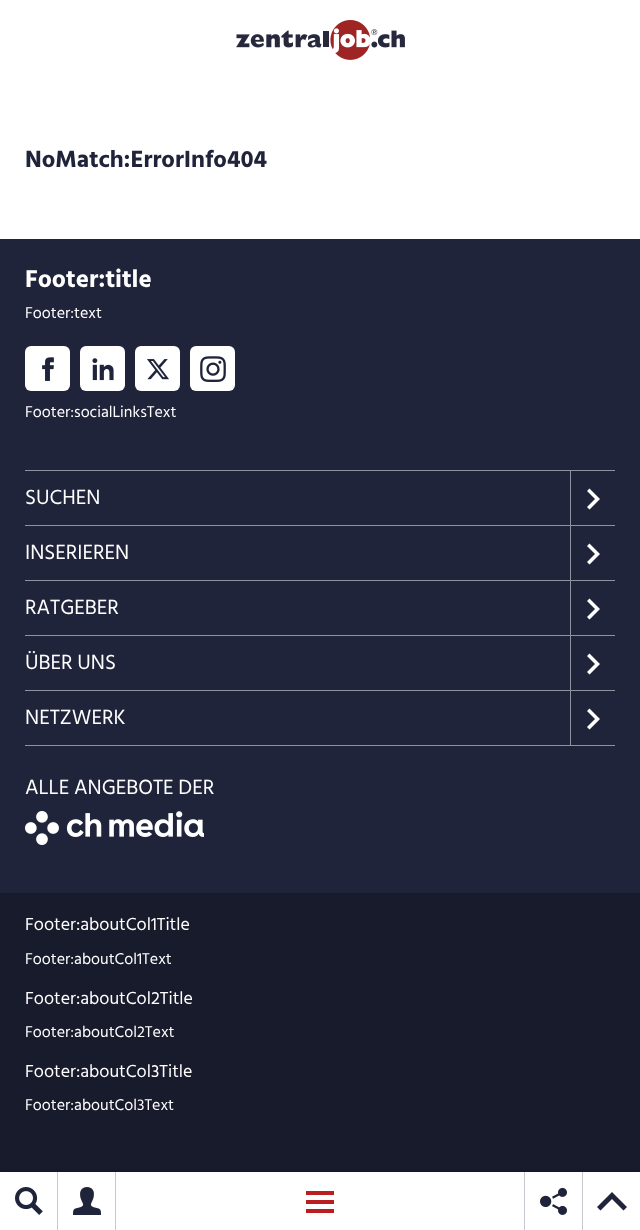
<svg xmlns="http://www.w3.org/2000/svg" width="640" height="1230">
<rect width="100%" height="100%" fill="#fff"/>
<image x="236" y="20" width="169" height="40" href="media/1.png"/>
<rect y="893" width="640" height="279" fill="#181b2c"/>
<rect y="1172" width="640" height="58" fill="#00000066" filter="blur(1.5px)"/>
<rect y="1172" width="640" height="58" fill="#fff"/>
<rect x="57" y="1172" width="1" height="58" fill="#c7c8ce"/>
<image x="15" y="1187" width="28" height="28" href="media/2.png"/>
<rect x="115" y="1172" width="1" height="58" fill="#c7c8ce"/>
<image x="73" y="1187" width="28" height="28" href="media/3.png"/>
<rect x="306" y="1191" width="28" height="4" fill="#b91f1e"/>
<rect x="306" y="1200" width="28" height="4" fill="#b91f1e"/>
<rect x="306" y="1209" width="28" height="4" fill="#b91f1e"/>
<rect x="524" y="1172" width="1" height="58" fill="#c7c8ce"/>
<image x="540" y="1187" width="27" height="28" href="media/4.png"/>
<rect x="582" y="1172" width="1" height="58" fill="#c7c8ce"/>
<path d="M597 1207l3.5 3.5l11.5-11.5l11.5 11.5l3.5-3.5l-15-15z" fill="#20243a"/>
<text x="25" y="167" style="font-family:Hind Siliguri;font-size:24px;font-weight:bold;fill:#20243a">NoMatch:ErrorInfo404</text>
<rect y="239" width="640" height="654" fill="#20243a"/>
<text x="25" y="287" style="font-family:Hind Siliguri;font-size:25px;font-weight:bold;fill:#fff">Footer:title</text>
<text x="25" y="318" style="font-family:Hind Siliguri;font-size:16px;fill:#fff">Footer:text</text>
<rect x="25" y="346" width="45" height="45" rx="6" fill="#fff"/>
<image x="42" y="357" width="12" height="24" href="media/5.png"/>
<rect x="80" y="346" width="45" height="45" rx="6" fill="#fff"/>
<image x="92" y="358" width="22" height="23" href="media/6.png"/>
<rect x="135" y="346" width="45" height="45" rx="6" fill="#fff"/>
<image x="147" y="359" width="22" height="21" href="media/7.png"/>
<rect x="190" y="346" width="45" height="45" rx="6" fill="#fff"/>
<image x="200" y="356" width="26" height="26" href="media/8.png"/>
<text x="25" y="417" style="font-family:Hind Siliguri;font-size:16px;fill:#fff">Footer:socialLinksText</text>
<rect x="25" y="470" width="590" height="1" fill="#90929d"/>
<text x="25" y="504" style="font-family:Hind Siliguri;font-size:21px;fill:#fff">SUCHEN</text>
<rect x="570" y="471" width="1" height="54" fill="#90929d"/>
<path d="M587 491l2.5-2.5l10.5 10.5l-10.5 10.5l-2.5-2.5l8-8z" fill="#fff"/>
<rect x="25" y="525" width="590" height="1" fill="#90929d"/>
<text x="25" y="559" style="font-family:Hind Siliguri;font-size:21px;fill:#fff">INSERIEREN</text>
<rect x="570" y="526" width="1" height="54" fill="#90929d"/>
<path d="M587 546l2.5-2.5l10.5 10.5l-10.5 10.5l-2.5-2.5l8-8z" fill="#fff"/>
<rect x="25" y="580" width="590" height="1" fill="#90929d"/>
<text x="25" y="614" style="font-family:Hind Siliguri;font-size:21px;fill:#fff">RATGEBER</text>
<rect x="570" y="581" width="1" height="54" fill="#90929d"/>
<path d="M587 601l2.5-2.5l10.5 10.5l-10.5 10.5l-2.5-2.5l8-8z" fill="#fff"/>
<rect x="25" y="635" width="590" height="1" fill="#90929d"/>
<text x="25" y="669" style="font-family:Hind Siliguri;font-size:21px;fill:#fff">ÜBER UNS</text>
<rect x="570" y="636" width="1" height="54" fill="#90929d"/>
<path d="M587 656l2.5-2.5l10.5 10.5l-10.5 10.5l-2.5-2.5l8-8z" fill="#fff"/>
<rect x="25" y="690" width="590" height="1" fill="#90929d"/>
<text x="25" y="724" style="font-family:Hind Siliguri;font-size:21px;fill:#fff">NETZWERK</text>
<rect x="570" y="691" width="1" height="54" fill="#90929d"/>
<path d="M587 711l2.5-2.5l10.5 10.5l-10.5 10.5l-2.5-2.5l8-8z" fill="#fff"/>
<rect x="25" y="745" width="590" height="1" fill="#90929d"/>
<text x="25" y="794" style="font-family:Hind Siliguri;font-size:21px;fill:#fff">ALLE ANGEBOTE DER</text>
<image x="25" y="811" width="179" height="34" href="media/9.png"/>
<text x="25" y="930" style="font-family:Hind Siliguri;font-size:18px;fill:#fff">Footer:aboutCol1Title</text>
<text x="25" y="964" style="font-family:Hind Siliguri;font-size:16px;fill:#fff">Footer:aboutCol1Text</text>
<text x="25" y="1004" style="font-family:Hind Siliguri;font-size:18px;fill:#fff">Footer:aboutCol2Title</text>
<text x="25" y="1037" style="font-family:Hind Siliguri;font-size:16px;fill:#fff">Footer:aboutCol2Text</text>
<text x="25" y="1077" style="font-family:Hind Siliguri;font-size:18px;fill:#fff">Footer:aboutCol3Title</text>
<text x="25" y="1110" style="font-family:Hind Siliguri;font-size:16px;fill:#fff">Footer:aboutCol3Text</text>
</svg>
